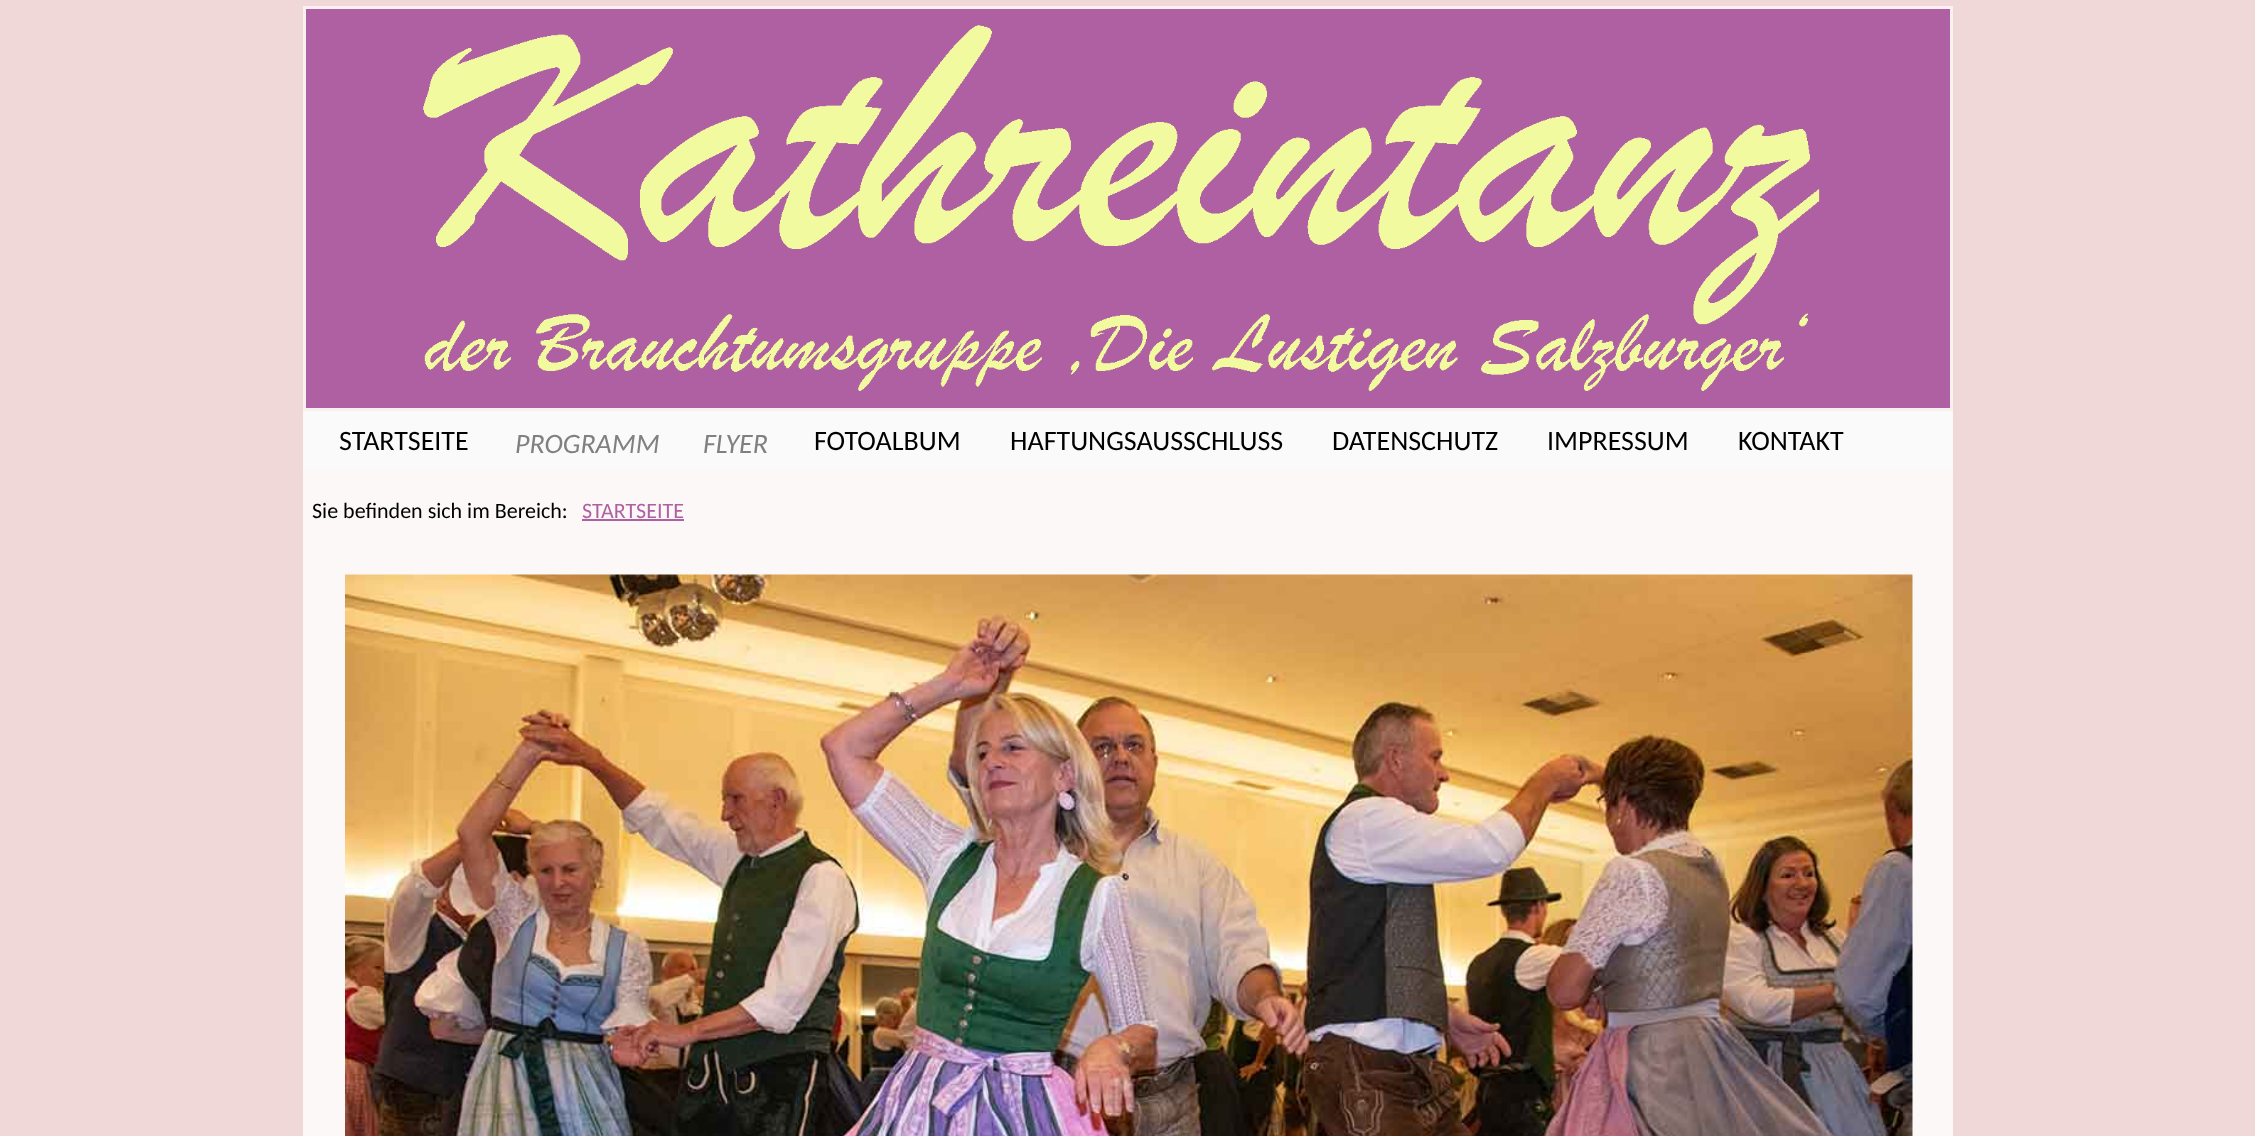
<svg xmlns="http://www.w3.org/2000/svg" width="2255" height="1136">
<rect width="100%" height="100%" fill="#f0d8d8"/>
<rect x="303" y="6" width="1650" height="405" fill="#f9f0f0"/>
<image x="306" y="9" width="1644" height="399" href="media/1.png"/>
<rect x="303" y="411" width="1650" height="59" fill="#fafafa"/>
<text x="339" y="450" style="font-family:Carlito;font-size:28px;fill:#000">STARTSEITE</text>
<text x="515" y="453" style="font-family:Carlito;font-size:28px;font-style:italic;fill:#808080">PROGRAMM</text>
<text x="703" y="453" style="font-family:Carlito;font-size:28px;font-style:italic;fill:#808080">FLYER</text>
<text x="814" y="450" style="font-family:Carlito;font-size:28px;fill:#000">FOTOALBUM</text>
<text x="1010" y="450" style="font-family:Carlito;font-size:28px;fill:#000">HAFTUNGSAUSSCHLUSS</text>
<text x="1332" y="450" style="font-family:Carlito;font-size:28px;fill:#000">DATENSCHUTZ</text>
<text x="1547" y="450" style="font-family:Carlito;font-size:28px;fill:#000">IMPRESSUM</text>
<text x="1738" y="450" style="font-family:Carlito;font-size:28px;fill:#000">KONTAKT</text>
<rect x="303" y="470" width="1650" height="666" fill="#fcf8f8"/>
<text x="312" y="518" style="font-family:Carlito;font-size:22px;fill:#000">Sie befinden sich im Bereich:</text>
<text x="582" y="518" style="font-family:Carlito;font-size:22px;fill:#af60a2">STARTSEITE</text>
<rect x="582" y="519" width="102" height="2" fill="#af60a2"/>
<image x="345" y="574" width="1568" height="562" href="media/2.png"/>
</svg>
